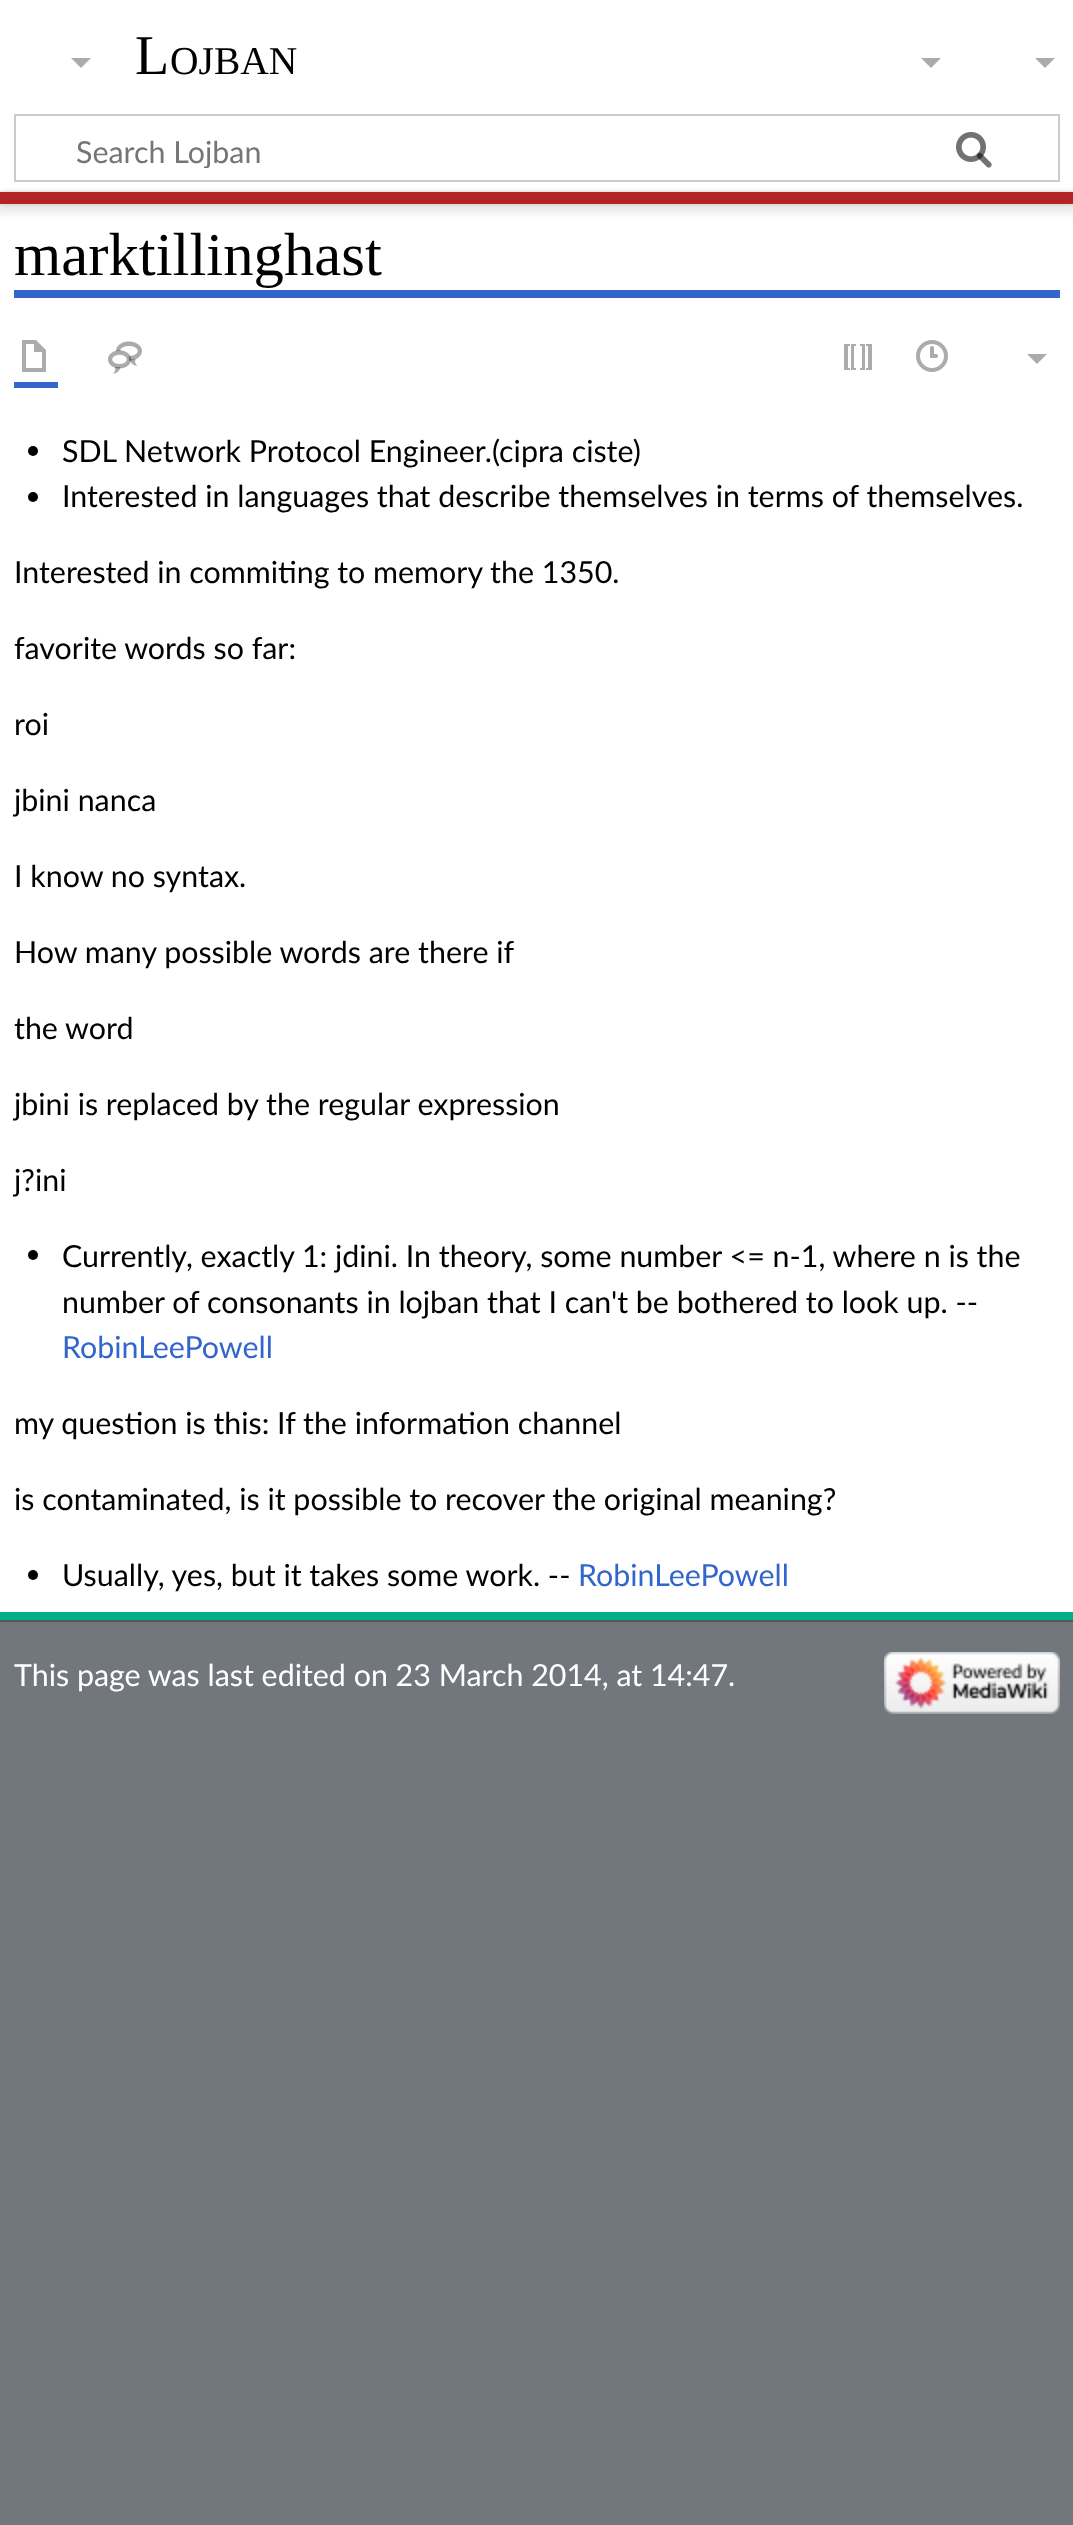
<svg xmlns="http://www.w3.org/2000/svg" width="1073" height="2525">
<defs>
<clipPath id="clip1"><rect x="76" y="132" width="838" height="36"/></clipPath>
</defs>
<rect width="100%" height="100%" fill="#72777d"/>
<rect width="1073" height="192" fill="#fff"/>
<text x="135" y="74" style="font-family:Liberation Serif;font-size:56px;fill:#000">L</text>
<text x="170" y="74" style="font-family:Liberation Serif;font-size:39.5px;fill:#000">OJBAN</text>
<path d="M1055 58l-10 10l-10-10z" fill="#ababab"/>
<rect x="15" y="115" width="1044" height="66" fill="none" stroke="#c8ccd1" stroke-width="2"/>
<image x="956" y="132" width="36" height="36" href="media/1.png"/>
<g clip-path="url(#clip1)">
<text x="76" y="163" style="font-family:Lato;font-size:30.4px;fill:#757575">Search Lojban</text>
</g>
<image x="956" y="132" width="36" height="36" href="media/2.png"/>
<rect y="204" width="1073" height="1408" fill="#fff"/>
<rect y="192" width="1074" height="12" fill="#00000033" filter="blur(2px)"/>
<rect x="-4" y="194" width="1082" height="20" fill="#00000012" filter="blur(3px)"/>
<rect y="192" width="1073" height="12" fill="#b32424"/>
<rect y="1612" width="1073" height="8" fill="#00af89"/>
<path d="M91 58l-10 10l-10-10z" fill="#ababab"/>
<path d="M941 58l-10 10l-10-10z" fill="#ababab"/>
<rect x="14" y="290" width="1046" height="8" fill="#36c"/>
<text x="14" y="275" style="font-family:Liberation Serif;font-size:60.75px;fill:#000">marktillinghast</text>
<rect x="14" y="382" width="44" height="6" fill="#36c"/>
<path d="M22 340v32h24v-22l-10-10zm4 4h8v8h8v16h-16z" fill="#ababab"/>
<image x="108" y="341" width="34" height="33" href="media/3.png"/>
<image x="844" y="344" width="28" height="26" href="media/4.png"/>
<image x="916" y="340" width="32" height="32" href="media/5.png"/>
<path d="M1047 354l-10 10l-10-10z" fill="#ababab"/>
<circle cx="33" cy="451" r="5" fill="#000"/>
<text x="62" y="462" style="font-family:Lato;font-size:30.4px;fill:#000">SDL Network Protocol Engineer.(cipra ciste)</text>
<circle cx="33" cy="497" r="5" fill="#000"/>
<text x="62" y="507" style="font-family:Lato;font-size:30.4px;fill:#000">Interested in languages that describe themselves in terms of themselves.</text>
<text x="14" y="583" style="font-family:Lato;font-size:30.4px;fill:#000">Interested in commiting to memory the 1350.</text>
<text x="14" y="659" style="font-family:Lato;font-size:30.4px;fill:#000">favorite words so far:</text>
<text x="14" y="735" style="font-family:Lato;font-size:30.4px;fill:#000">roi</text>
<text x="14" y="811" style="font-family:Lato;font-size:30.4px;fill:#000">jbini nanca</text>
<text x="14" y="887" style="font-family:Lato;font-size:30.4px;fill:#000">I know no syntax.</text>
<text x="14" y="963" style="font-family:Lato;font-size:30.4px;fill:#000">How many possible words are there if</text>
<text x="14" y="1039" style="font-family:Lato;font-size:30.4px;fill:#000">the word</text>
<text x="14" y="1115" style="font-family:Lato;font-size:30.4px;fill:#000">jbini is replaced by the regular expression</text>
<text x="14" y="1191" style="font-family:Lato;font-size:30.4px;fill:#000">j?ini</text>
<circle cx="33" cy="1255" r="5" fill="#000"/>
<text x="62" y="1267" style="font-family:Lato;font-size:30.4px;fill:#000">Currently, exactly 1: jdini. In theory, some number &lt;= n-1, where n is the</text>
<text x="62" y="1313" style="font-family:Lato;font-size:30.4px;fill:#000">number of consonants in lojban that I can't be bothered to look up. --</text>
<text x="62" y="1358" style="font-family:Lato;font-size:30.4px;fill:#36c">RobinLeePowell</text>
<text x="14" y="1434" style="font-family:Lato;font-size:30.4px;fill:#000">my question is this: If the information channel</text>
<text x="14" y="1510" style="font-family:Lato;font-size:30.4px;fill:#000">is contaminated, is it possible to recover the original meaning?</text>
<circle cx="33" cy="1575" r="5" fill="#000"/>
<text x="62" y="1586" style="font-family:Lato;font-size:30.4px;fill:#000">Usually, yes, but it takes some work. --</text>
<text x="578" y="1586" style="font-family:Lato;font-size:30.4px;fill:#36c">RobinLeePowell</text>
<rect y="1620" width="1073" height="2" fill="#54595d"/>
<text x="14" y="1686" style="font-family:Lato;font-size:30.4px;fill:#fff">This page was last edited on 23 March 2014, at 14:47.</text>
<image x="884" y="1652" width="176" height="62" href="media/6.png"/>
</svg>
